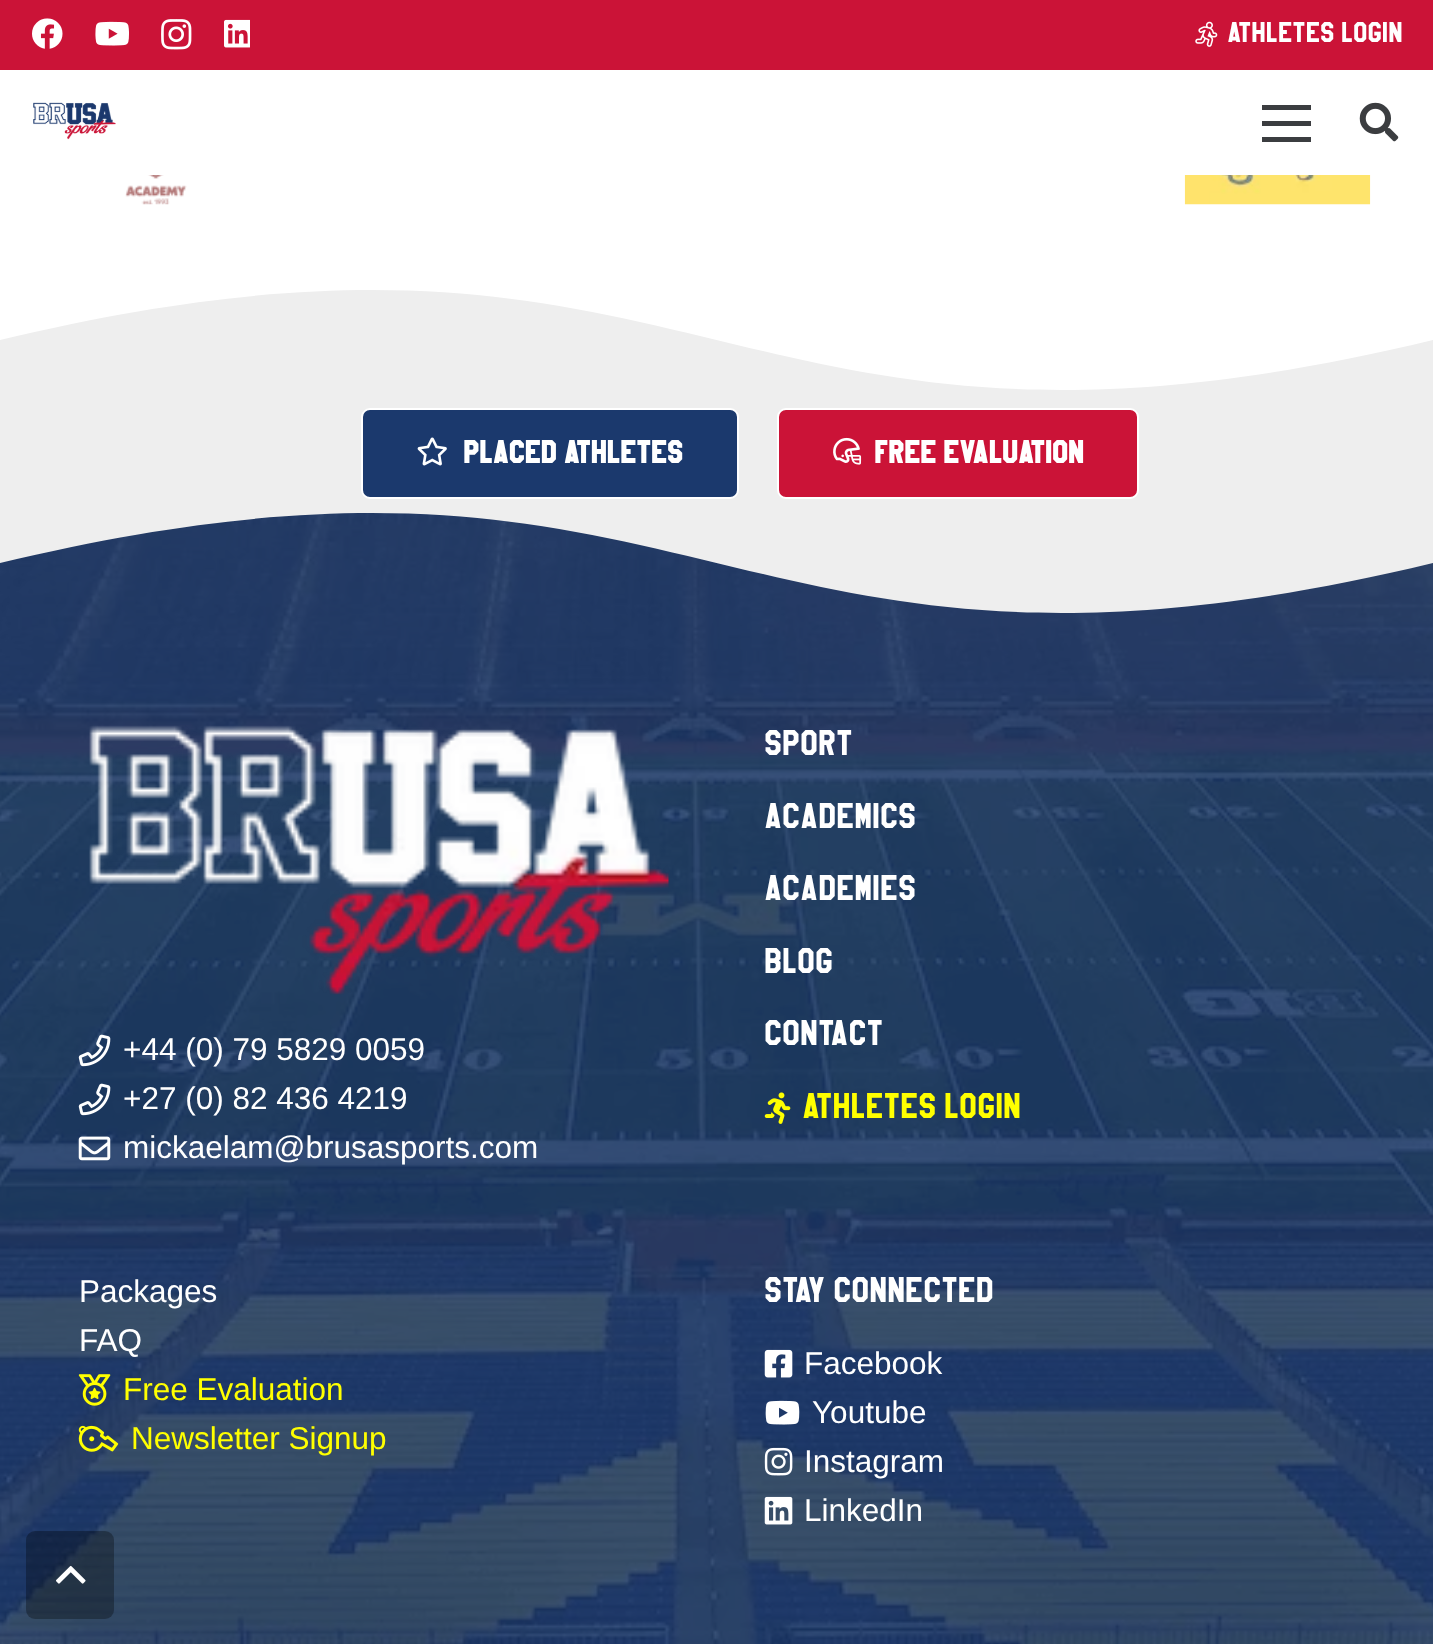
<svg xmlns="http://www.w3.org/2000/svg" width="1433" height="1644">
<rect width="100%" height="100%" fill="#fff"/>
<rect width="1433" height="70" fill="#cb1337"/>
<image x="32" y="18" width="31" height="31" href="media/1.png"/>
<image x="95" y="21" width="34" height="25" href="media/2.png"/>
<image x="161" y="19" width="31" height="31" href="media/3.png"/>
<image x="224" y="19" width="26" height="29" href="media/4.png"/>
<image x="1195" y="21" width="23" height="26" href="media/5.png"/>
<text x="1227" y="42" style="font-family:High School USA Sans;font-size:25.25px;fill:#fff">ATHLETES LOGIN</text>
<image x="33" y="102" width="83" height="38" href="media/6.png"/>
<rect x="1262" y="121" width="49" height="5" fill="#3b3d40"/>
<rect x="1262" y="105" width="49" height="5" fill="#3b3d40"/>
<rect x="1262" y="137" width="49" height="5" fill="#3b3d40"/>
<image x="1359" y="102" width="40" height="40" href="media/7.png"/>
<image x="125" y="175" width="62" height="30" href="media/8.png"/>
<image x="1184" y="175" width="187" height="30" href="media/9.png"/>
<rect y="290" width="1433" height="216" fill="#eee"/>
<path d="M1433 340c-716 173-716-173-1433 0v-58h1433z" fill="#fff"/>
<rect x="362" y="409" width="376" height="89" rx="8" fill="#1b396d" stroke="#fff" stroke-width="2"/>
<image x="417" y="437" width="30" height="29" href="media/10.png"/>
<text x="463" y="463" style="font-family:High School USA Sans;font-size:28px;font-weight:bold;fill:#fff">PLACED ATHLETES</text>
<rect x="778" y="409" width="360" height="89" rx="8" fill="#cb1337" stroke="#fff" stroke-width="2"/>
<image x="833" y="437" width="29" height="28" href="media/11.png"/>
<text x="874" y="463" style="font-family:High School USA Sans;font-size:28px;font-weight:bold;fill:#fff">FREE EVALUATION</text>
<image x="0" y="513" width="1433" height="1131" href="media/12.png"/>
<path d="M1433 563c-716 173-716-173-1433 0v-57h1433z" fill="#eee"/>
<image x="89" y="725" width="580" height="270" href="media/13.png"/>
<image x="78" y="1034" width="33" height="33" href="media/14.png"/>
<text x="123" y="1060" style="font-family:Liberation Sans;font-size:31.5px;fill:#fff">+44 (0) 79 5829 0059</text>
<image x="78" y="1083" width="33" height="33" href="media/15.png"/>
<text x="123" y="1109" style="font-family:Liberation Sans;font-size:31.5px;fill:#fff">+27 (0) 82 436 4219</text>
<image x="78" y="1136" width="33" height="25" href="media/16.png"/>
<text x="123" y="1158" style="font-family:Liberation Sans;font-size:31.5px;fill:#fff">mickaelam@brusasports.com</text>
<text x="764" y="755" style="font-family:High School USA Sans;font-size:31.5px;fill:#fff">Sport</text>
<text x="764" y="828" style="font-family:High School USA Sans;font-size:31.5px;fill:#fff">Academics</text>
<text x="764" y="900" style="font-family:High School USA Sans;font-size:31.5px;fill:#fff">Academies</text>
<text x="764" y="973" style="font-family:High School USA Sans;font-size:31.5px;fill:#fff">Blog</text>
<text x="764" y="1045" style="font-family:High School USA Sans;font-size:31.5px;fill:#fff">Contact</text>
<image x="764" y="1092" width="27" height="32" href="media/17.png"/>
<text x="802" y="1118" style="font-family:High School USA Sans;font-size:31.5px;fill:#ff0">Athletes Login</text>
<text x="79" y="1302" style="font-family:Liberation Sans;font-size:31.5px;fill:#fff">Packages</text>
<text x="79" y="1351" style="font-family:Liberation Sans;font-size:31.5px;fill:#fff">FAQ</text>
<image x="78" y="1374" width="33" height="32" href="media/18.png"/>
<text x="123" y="1400" style="font-family:Liberation Sans;font-size:31.5px;fill:#ff0">Free Evaluation</text>
<image x="78" y="1425" width="41" height="27" href="media/19.png"/>
<text x="131" y="1449" style="font-family:Liberation Sans;font-size:31.5px;fill:#ff0">Newsletter Signup</text>
<text x="764" y="1302" style="font-family:High School USA Sans;font-size:31.5px;fill:#fff">Stay Connected</text>
<image x="764" y="1349" width="29" height="29" href="media/20.png"/>
<text x="804" y="1374" style="font-family:Liberation Sans;font-size:31.5px;fill:#fff">Facebook</text>
<image x="765" y="1400" width="35" height="25" href="media/21.png"/>
<text x="812" y="1423" style="font-family:Liberation Sans;font-size:31.5px;fill:#fff">Youtube</text>
<image x="764" y="1447" width="29" height="29" href="media/22.png"/>
<text x="804" y="1472" style="font-family:Liberation Sans;font-size:31.5px;fill:#fff">Instagram</text>
<image x="764" y="1496" width="29" height="29" href="media/23.png"/>
<text x="804" y="1521" style="font-family:Liberation Sans;font-size:31.5px;fill:#fff">LinkedIn</text>
<rect x="26" y="1531" width="88" height="88" rx="9" fill="#0000004d"/>
<image x="56" y="1565" width="30" height="19" href="media/24.png"/>
</svg>
